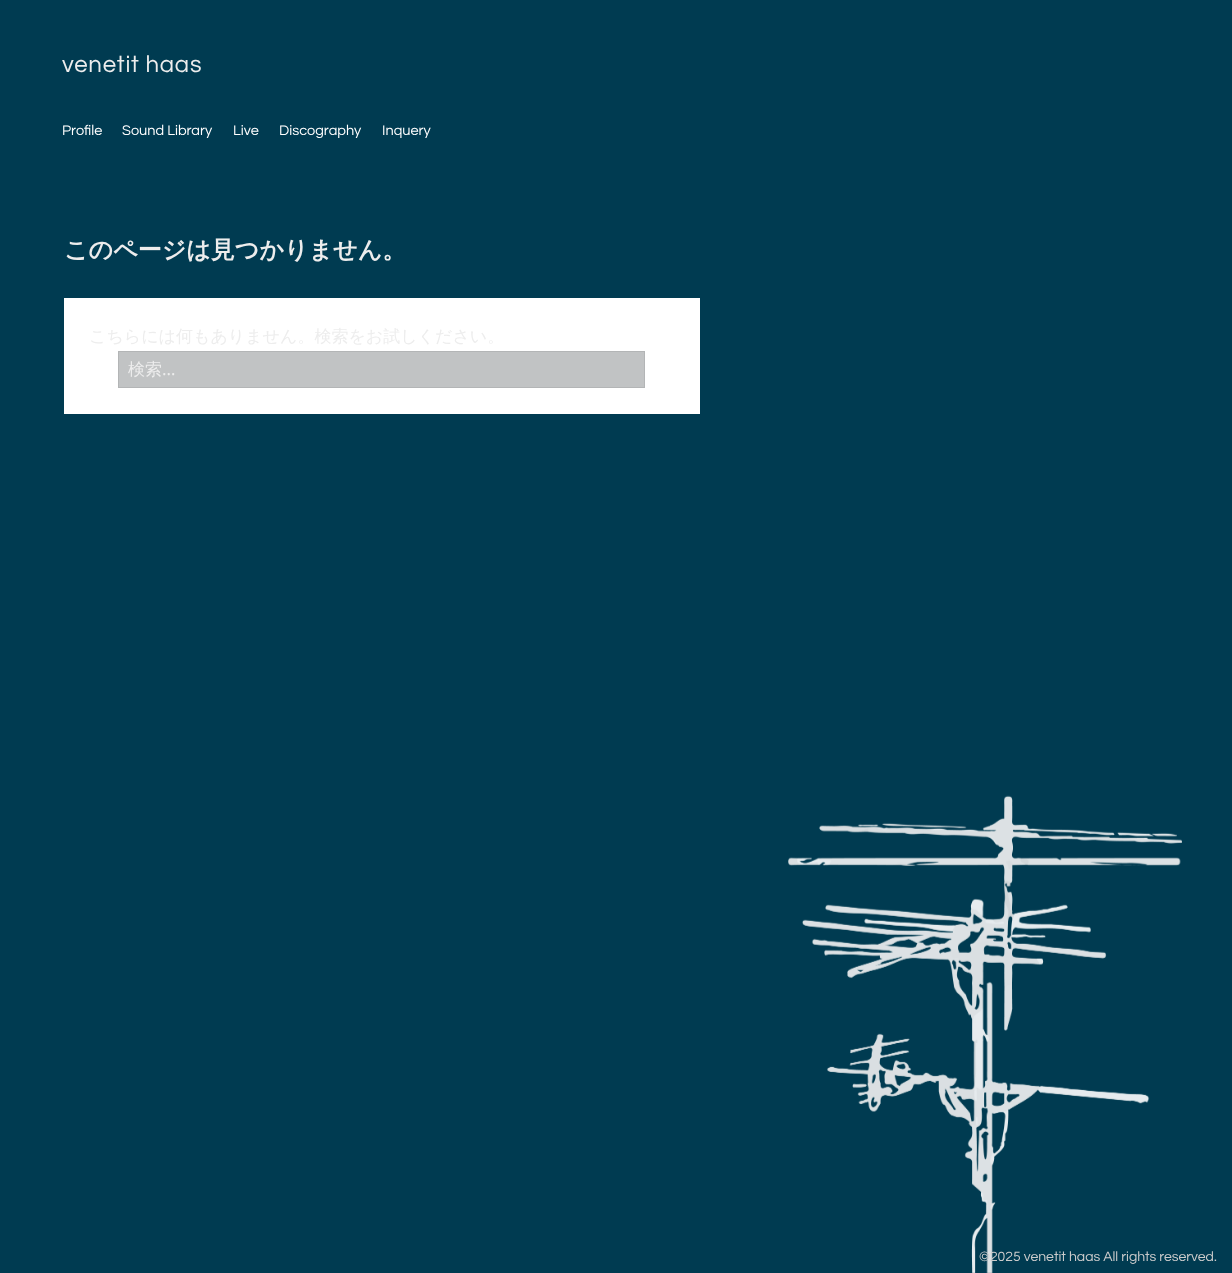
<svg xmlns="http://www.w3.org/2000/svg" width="1232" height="1273">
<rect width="100%" height="100%" fill="#003b51"/>
<image x="788" y="795" width="394" height="478" href="media/1.png"/>
<text x="62" y="72" style="font-family:Questrial;font-size:24px;letter-spacing:0.75px;fill:#ededed">venetit haas</text>
<text x="62" y="135" style="font-family:Questrial;font-size:14.5px;fill:#fff">Profile</text>
<text x="122" y="135" style="font-family:Questrial;font-size:14.5px;fill:#fff">Sound Library</text>
<text x="233" y="135" style="font-family:Questrial;font-size:14.5px;fill:#fff">Live</text>
<text x="279" y="135" style="font-family:Questrial;font-size:14.5px;fill:#fff">Discography</text>
<text x="382" y="135" style="font-family:Questrial;font-size:14.5px;fill:#fff">Inquery</text>
<text x="64" y="258" style="font-family:WenQuanYi Zen Hei;font-size:24px;font-weight:bold;fill:#ededed">このページは見つかりません。</text>
<rect x="64" y="298" width="636" height="116" fill="#fff"/>
<text x="89" y="342" style="font-family:WenQuanYi Zen Hei;font-size:17px;font-weight:500;fill:#ededed">こちらには何もありません。検索をお試しください。</text>
<rect x="118.5" y="351.5" width="526" height="36" fill="#c1c3c4" stroke="#b3b5b6"/>
<text x="128" y="375" style="font-family:WenQuanYi Zen Hei;font-size:17px;font-weight:500;fill:#ededed">検索</text>
<text x="162" y="375" style="font-family:Noto Sans;font-size:17px;fill:#ededed">…</text>
<text x="979" y="1261" style="font-family:Questrial;font-size:14px;fill:#ccc">©2025 venetit haas All rights reserved.</text>
</svg>
